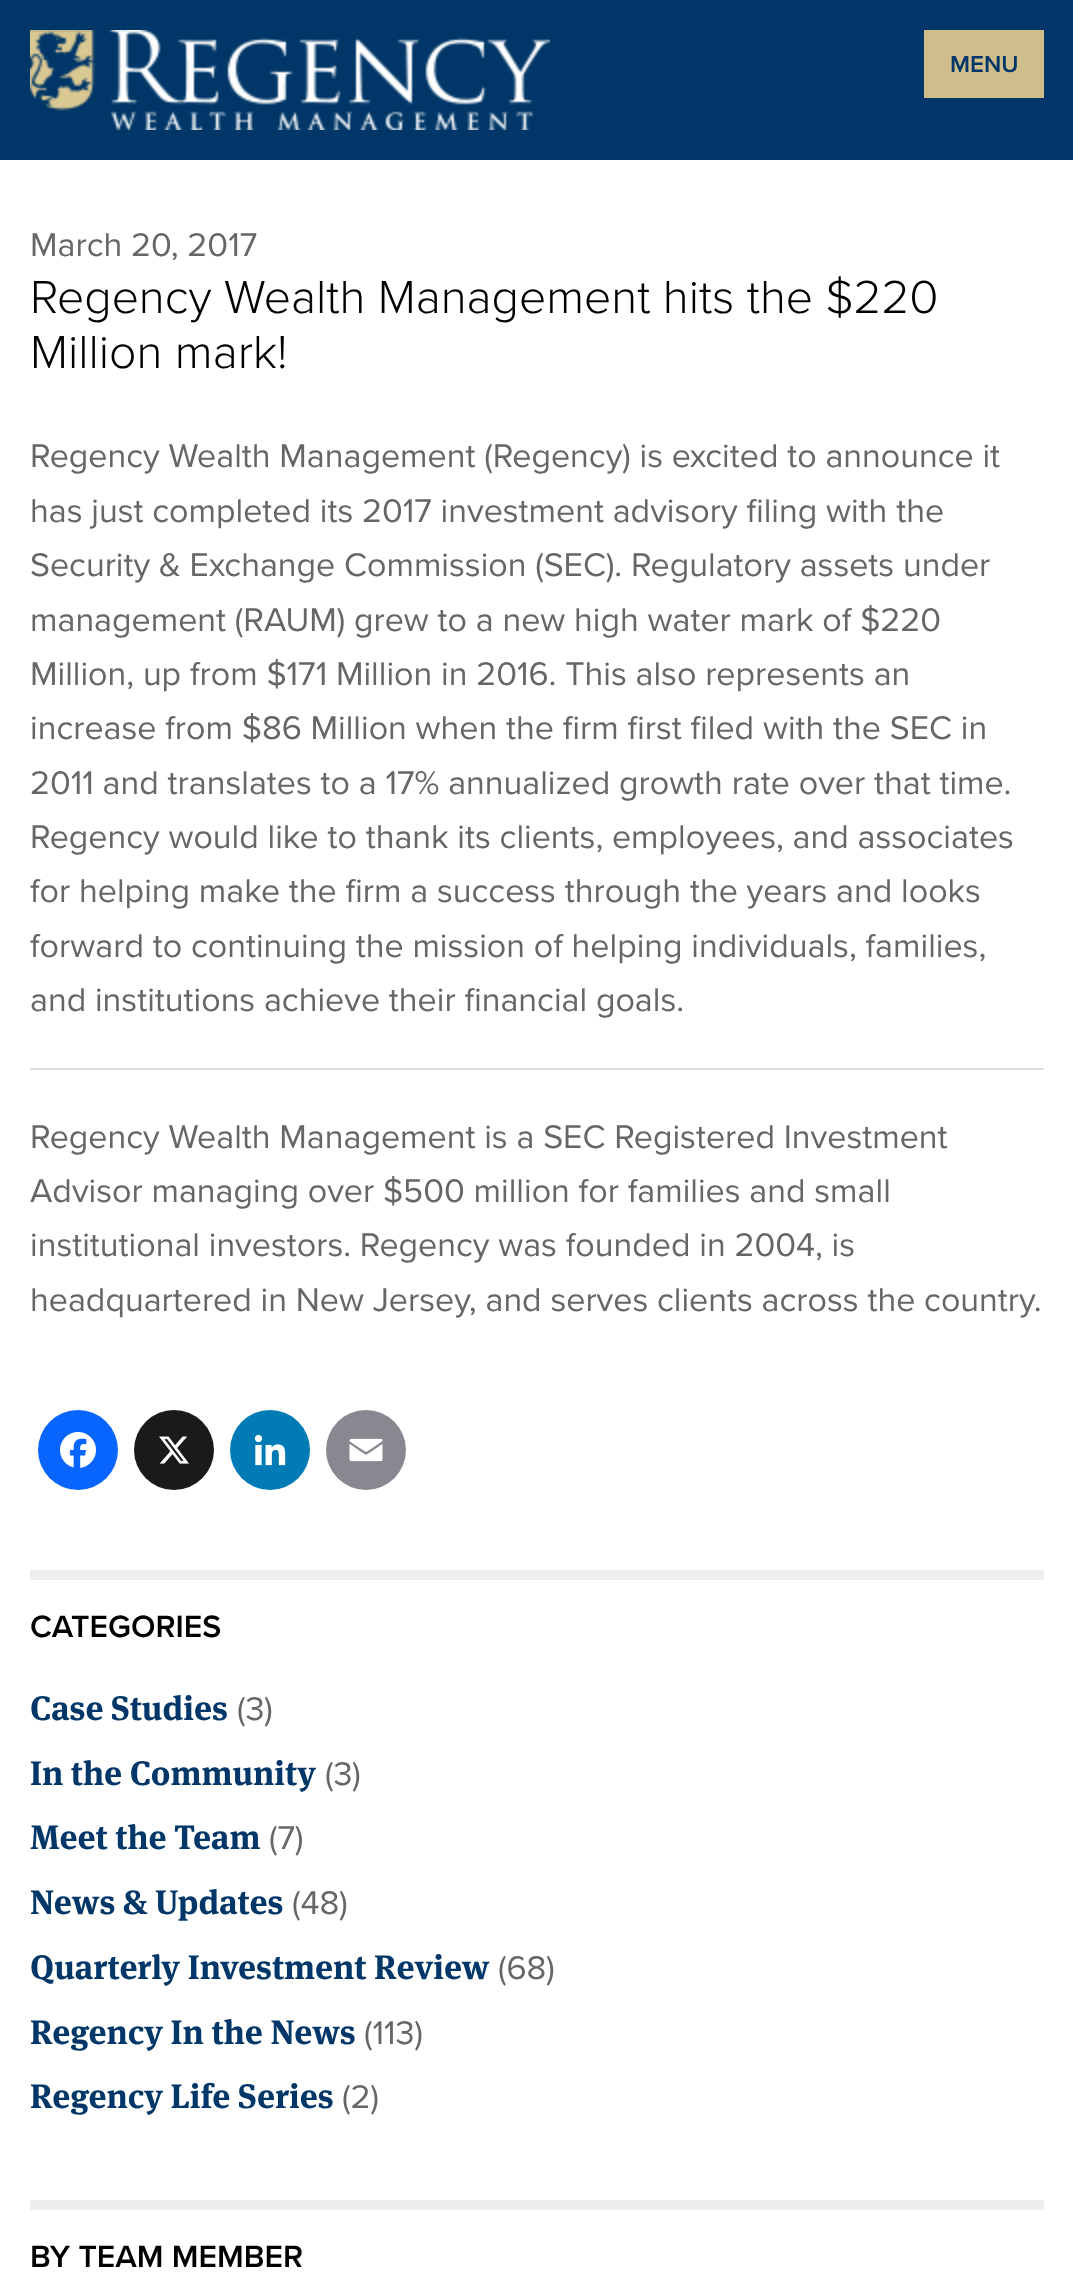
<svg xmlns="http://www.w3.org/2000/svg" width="1073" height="2284">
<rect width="100%" height="100%" fill="#fff"/>
<rect width="1073" height="160" fill="#003768"/>
<image x="30" y="30" width="520" height="100" href="media/1.png"/>
<rect x="924" y="30" width="120" height="68" fill="#cfbe8c"/>
<text x="950" y="72" style="font-family:Proxima Nova;font-size:24px;font-weight:600;fill:#003768">MENU</text>
<text x="30" y="256" style="font-family:Proxima Nova;font-size:34px;fill:#666">March 20, 2017</text>
<text x="30" y="313" style="font-family:Proxima Nova;font-size:48px;font-weight:300;fill:#000">Regency Wealth Management hits the $220</text>
<text x="30" y="368" style="font-family:Proxima Nova;font-size:48px;font-weight:300;fill:#000">Million mark!</text>
<text x="30" y="467" style="font-family:Proxima Nova;font-size:34px;fill:#666">Regency Wealth Management (Regency) is excited to announce it</text>
<text x="30" y="522" style="font-family:Proxima Nova;font-size:34px;fill:#666">has just completed its 2017 investment advisory filing with the</text>
<text x="30" y="576" style="font-family:Proxima Nova;font-size:34px;fill:#666">Security &amp; Exchange Commission (SEC). Regulatory assets under</text>
<text x="30" y="631" style="font-family:Proxima Nova;font-size:34px;fill:#666">management (RAUM) grew to a new high water mark of $220</text>
<text x="30" y="685" style="font-family:Proxima Nova;font-size:34px;fill:#666">Million, up from $171 Million in 2016. This also represents an</text>
<text x="30" y="739" style="font-family:Proxima Nova;font-size:34px;fill:#666">increase from $86 Million when the firm first filed with the SEC in</text>
<text x="30" y="794" style="font-family:Proxima Nova;font-size:34px;fill:#666">2011 and translates to a 17% annualized growth rate over that time.</text>
<text x="30" y="848" style="font-family:Proxima Nova;font-size:34px;fill:#666">Regency would like to thank its clients, employees, and associates</text>
<text x="30" y="902" style="font-family:Proxima Nova;font-size:34px;fill:#666">for helping make the firm a success through the years and looks</text>
<text x="30" y="957" style="font-family:Proxima Nova;font-size:34px;fill:#666">forward to continuing the mission of helping individuals, families,</text>
<text x="30" y="1011" style="font-family:Proxima Nova;font-size:34px;fill:#666">and institutions achieve their financial goals.</text>
<rect x="30" y="1068" width="1014" height="2" fill="#ddd"/>
<text x="30" y="1148" style="font-family:Proxima Nova;font-size:34px;fill:#666">Regency Wealth Management is a SEC Registered Investment</text>
<text x="30" y="1202" style="font-family:Proxima Nova;font-size:34px;fill:#666">Advisor managing over $500 million for families and small</text>
<text x="30" y="1256" style="font-family:Proxima Nova;font-size:34px;fill:#666">institutional investors. Regency was founded in 2004, is</text>
<text x="30" y="1311" style="font-family:Proxima Nova;font-size:34px;fill:#666">headquartered in New Jersey, and serves clients across the country.</text>
<circle cx="78" cy="1450" r="40" fill="#0866ff"/>
<image x="60" y="1432" width="36" height="36" href="media/2.png"/>
<circle cx="174" cy="1450" r="40" fill="#1a1a1a"/>
<image x="159" y="1436" width="30" height="28" href="media/3.png"/>
<circle cx="270" cy="1450" r="40" fill="#007bb5"/>
<image x="254" y="1434" width="32" height="32" href="media/4.png"/>
<circle cx="366" cy="1450" r="40" fill="#888990"/>
<image x="349" y="1438" width="34" height="24" href="media/5.png"/>
<rect x="30" y="1570" width="1014" height="10" fill="#eee"/>
<text x="30" y="1637" style="font-family:Proxima Nova;font-size:32px;font-weight:600;fill:#000">CATEGORIES</text>
<text x="30" y="1720" style="font-family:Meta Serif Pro;font-size:34px;font-weight:bold;fill:#003768">Case Studies</text>
<text x="237" y="1720" style="font-family:Proxima Nova;font-size:34px;fill:#666">(3)</text>
<text x="30" y="1785" style="font-family:Meta Serif Pro;font-size:34px;font-weight:bold;fill:#003768">In the Community</text>
<text x="325" y="1785" style="font-family:Proxima Nova;font-size:34px;fill:#666">(3)</text>
<text x="30" y="1849" style="font-family:Meta Serif Pro;font-size:34px;font-weight:bold;fill:#003768">Meet the Team</text>
<text x="269" y="1849" style="font-family:Proxima Nova;font-size:34px;fill:#666">(7)</text>
<text x="30" y="1914" style="font-family:Meta Serif Pro;font-size:34px;font-weight:bold;fill:#003768">News &amp; Updates</text>
<text x="292" y="1914" style="font-family:Proxima Nova;font-size:34px;fill:#666">(48)</text>
<text x="30" y="1979" style="font-family:Meta Serif Pro;font-size:34px;font-weight:bold;fill:#003768">Quarterly Investment Review</text>
<text x="498" y="1979" style="font-family:Proxima Nova;font-size:34px;fill:#666">(68)</text>
<text x="30" y="2044" style="font-family:Meta Serif Pro;font-size:34px;font-weight:bold;fill:#003768">Regency In the News</text>
<text x="364" y="2044" style="font-family:Proxima Nova;font-size:34px;fill:#666">(113)</text>
<text x="30" y="2108" style="font-family:Meta Serif Pro;font-size:34px;font-weight:bold;fill:#003768">Regency Life Series</text>
<text x="342" y="2108" style="font-family:Proxima Nova;font-size:34px;fill:#666">(2)</text>
<rect x="30" y="2200" width="1014" height="10" fill="#eee"/>
<text x="30" y="2267" style="font-family:Proxima Nova;font-size:32px;font-weight:600;fill:#000">BY TEAM MEMBER</text>
</svg>
